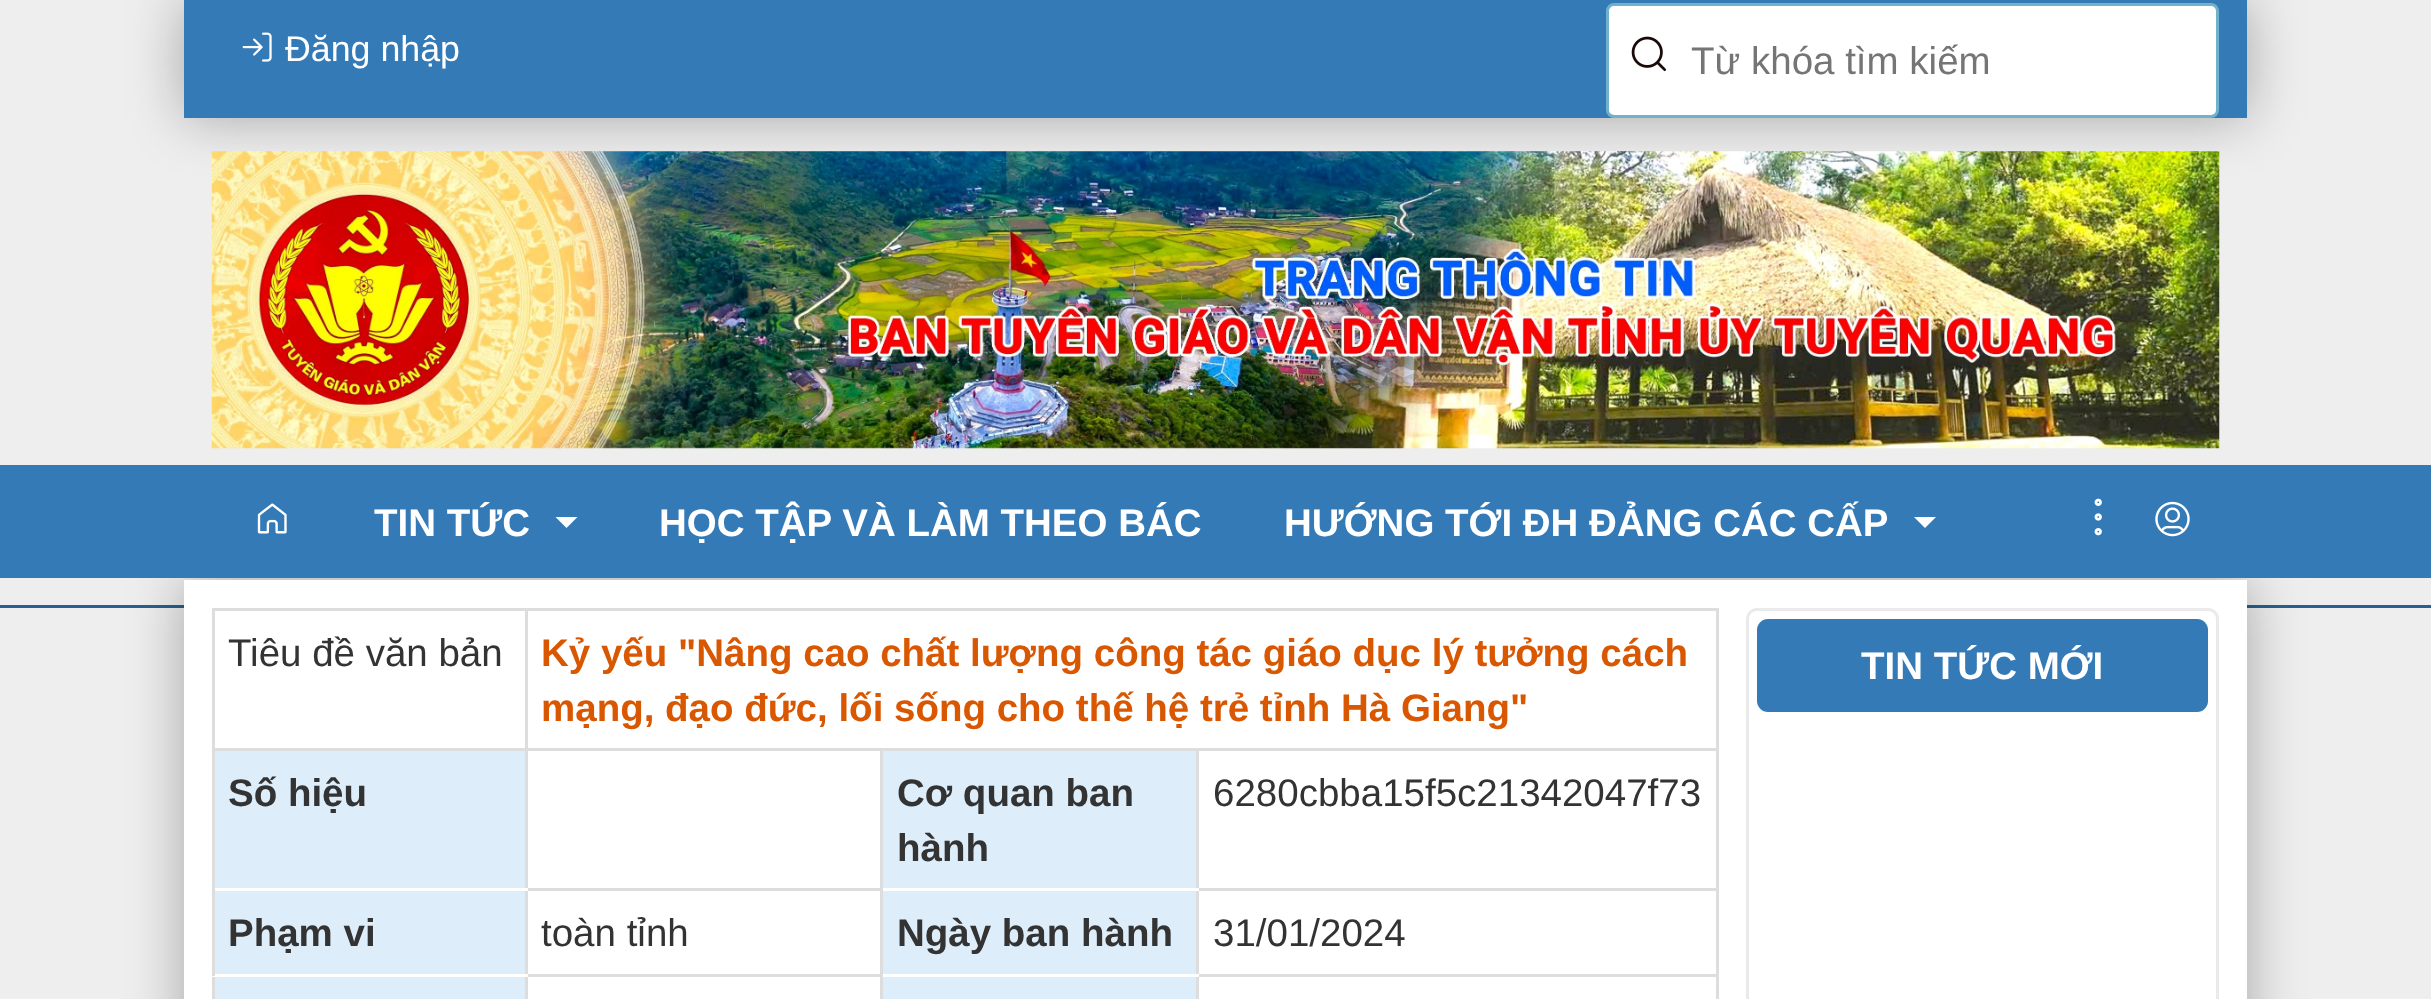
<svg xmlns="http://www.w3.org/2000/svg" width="2431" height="999">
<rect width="100%" height="100%" fill="#eee"/>
<rect x="184" width="2063" height="118" fill="#0000004d" filter="blur(27.5px)"/>
<rect x="184" width="2063" height="118" fill="#337ab7"/>
<image x="242" y="32" width="30" height="30" href="media/1.png"/>
<text x="285" y="61" style="font-family:Liberation Sans;font-size:35.75px;fill:#fff">Đăng nhập</text>
<rect x="1607.5" y="4.5" width="610" height="112" rx="6.5" fill="#fff" stroke="#70b1cc" stroke-width="3"/>
<image x="1631" y="36" width="36" height="36" href="media/2.png"/>
<text x="1691" y="74" style="font-family:Liberation Sans;font-size:38.5px;fill:#757575">Từ khóa tìm kiếm</text>
<image x="211" y="151" width="2009" height="298" href="media/3.png"/>
<rect y="605" width="2431" height="3" fill="#286090"/>
<rect x="184" y="580" width="2063" height="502" fill="#0000004d" filter="blur(27.5px)"/>
<rect y="465" width="2431" height="113" fill="#337ab7"/>
<image x="257" y="503" width="30" height="31" href="media/4.png"/>
<text x="374" y="536" style="font-family:Liberation Sans;font-size:38.5px;font-weight:bold;fill:#fff">TIN TỨC</text>
<path d="M555.5 517h22l-11 11z" fill="#fff"/>
<text x="659" y="536" style="font-family:Liberation Sans;font-size:38.5px;font-weight:bold;fill:#fff">HỌC TẬP VÀ LÀM THEO BÁC</text>
<text x="1284" y="536" style="font-family:Liberation Sans;font-size:38.5px;font-weight:bold;fill:#fff">HƯỚNG TỚI ĐH ĐẢNG CÁC CẤP</text>
<path d="M1914 517h22l-11 11z" fill="#fff"/>
<image x="2094" y="498" width="8" height="38" href="media/5.png"/>
<image x="2155" y="501" width="35" height="36" href="media/6.png"/>
<rect x="184" y="580" width="2063" height="419" fill="#fff"/>
<rect x="212" y="608" width="1507" height="3" fill="#ddd"/>
<rect x="212" y="748" width="1507" height="3" fill="#ddd"/>
<rect x="528" y="888" width="1191" height="3" fill="#ddd"/>
<rect x="1199" y="974" width="520" height="3" fill="#ddd"/>
<rect x="1716" y="974" width="3" height="25" fill="#ddd"/>
<rect x="1716" y="888" width="3" height="88" fill="#ddd"/>
<rect x="1716" y="748" width="3" height="143" fill="#ddd"/>
<rect x="1716" y="608" width="3" height="143" fill="#ddd"/>
<rect x="212" y="608" width="3" height="143" fill="#ddd"/>
<text x="228" y="666" style="font-family:Liberation Sans;font-size:38.5px;fill:#333">Tiêu đề văn bản</text>
<text x="541" y="666" style="font-family:Liberation Sans;font-size:38.5px;font-weight:bold;fill:#d95700">Kỷ yếu "Nâng cao chất lượng công tác giáo dục lý tưởng cách</text>
<text x="541" y="721" style="font-family:Liberation Sans;font-size:38.5px;font-weight:bold;fill:#d95700">mạng, đạo đức, lối sống cho thế hệ trẻ tỉnh Hà Giang"</text>
<rect x="212" y="974" width="3" height="25" fill="#ddd"/>
<rect x="215" y="977" width="310" height="22" fill="#ddedf9"/>
<rect x="525" y="974" width="3" height="25" fill="#ddd"/>
<rect x="883" y="977" width="313" height="22" fill="#ddedf9"/>
<rect x="880" y="974" width="3" height="25" fill="#ddd"/>
<rect x="1196" y="748" width="3" height="251" fill="#ddd"/>
<rect x="215" y="751" width="310" height="137" fill="#ddedf9"/>
<rect x="880" y="974" width="319" height="3" fill="#fff"/>
<rect x="880" y="888" width="3" height="88" fill="#ddd"/>
<rect x="525" y="974" width="358" height="3" fill="#ddd"/>
<rect x="525" y="608" width="3" height="368" fill="#ddd"/>
<rect x="212" y="974" width="316" height="3" fill="#fff"/>
<rect x="212" y="888" width="3" height="88" fill="#ddd"/>
<rect x="212" y="888" width="316" height="3" fill="#fff"/>
<rect x="212" y="748" width="3" height="143" fill="#ddd"/>
<text x="228" y="806" style="font-family:Liberation Sans;font-size:38.5px;font-weight:bold;fill:#333">Số hiệu</text>
<rect x="883" y="751" width="313" height="137" fill="#ddedf9"/>
<rect x="880" y="888" width="319" height="3" fill="#fff"/>
<rect x="880" y="748" width="3" height="143" fill="#ddd"/>
<text x="897" y="806" style="font-family:Liberation Sans;font-size:38.5px;font-weight:bold;fill:#333">Cơ quan ban</text>
<text x="897" y="861" style="font-family:Liberation Sans;font-size:38.5px;font-weight:bold;fill:#333">hành</text>
<text x="1213" y="806" style="font-family:Liberation Sans;font-size:38.5px;fill:#333">6280cbba15f5c21342047f73</text>
<rect x="215" y="891" width="310" height="83" fill="#ddedf9"/>
<text x="228" y="946" style="font-family:Liberation Sans;font-size:38.5px;font-weight:bold;fill:#333">Phạm vi</text>
<text x="541" y="946" style="font-family:Liberation Sans;font-size:38.5px;fill:#333">toàn tỉnh</text>
<rect x="883" y="891" width="313" height="83" fill="#ddedf9"/>
<text x="897" y="946" style="font-family:Liberation Sans;font-size:38.5px;font-weight:bold;fill:#333">Ngày ban hành</text>
<text x="1213" y="946" style="font-family:Liberation Sans;font-size:38.5px;fill:#333">31/01/2024</text>
<rect x="1747.5" y="609.5" width="470" height="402" rx="9.5" fill="none" stroke="#eaeaea" stroke-width="3"/>
<rect x="1757" y="619" width="451" height="93" rx="11" fill="#337ab7"/>
<text x="1861" y="679" style="font-family:Liberation Sans;font-size:38.5px;font-weight:bold;fill:#fff">TIN TỨC MỚI</text>
</svg>
